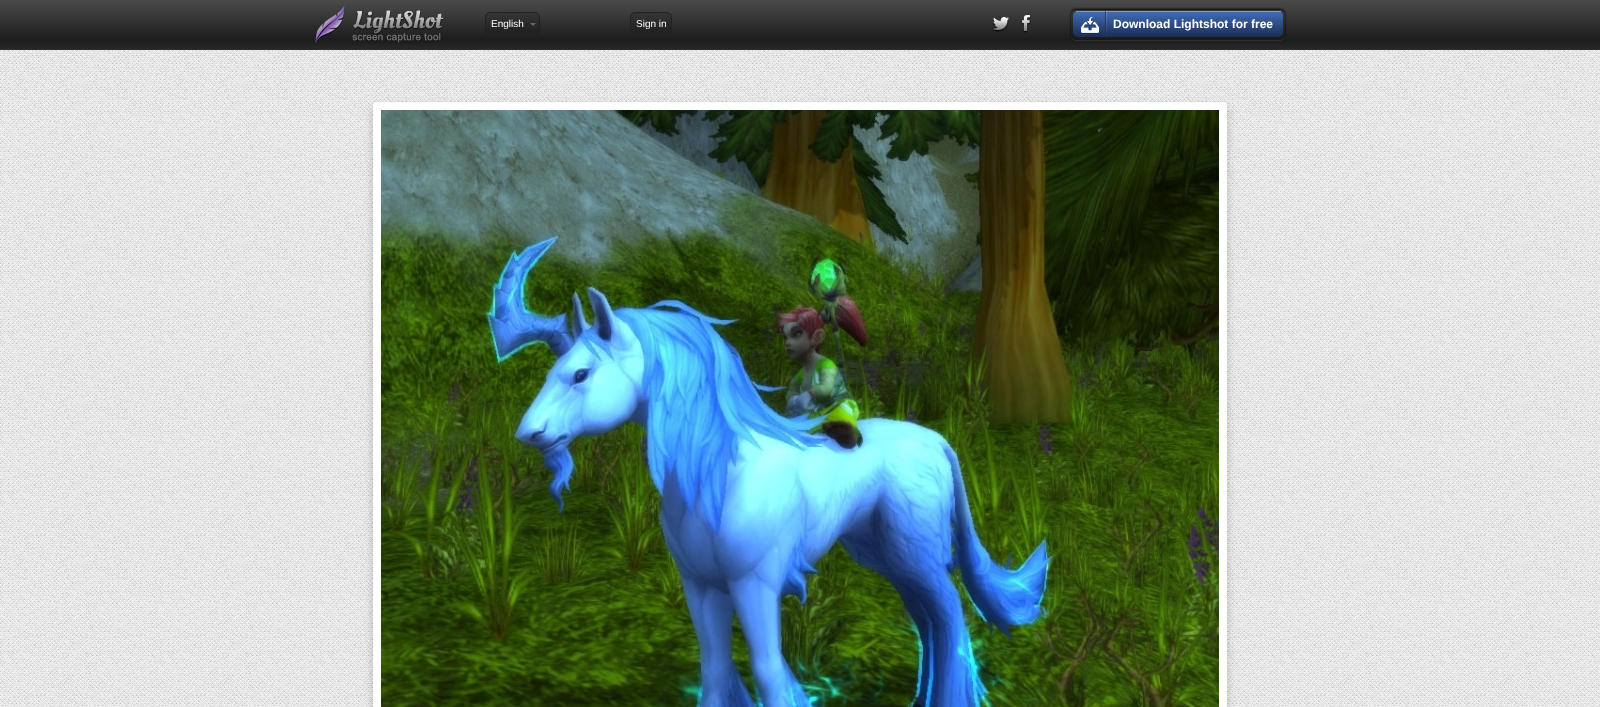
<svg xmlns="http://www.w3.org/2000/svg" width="1600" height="707">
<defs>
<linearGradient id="g1" gradientUnits="userSpaceOnUse" x1="800" y1="0" x2="800" y2="50"><stop offset="0" stop-color="#4b4b4b"/><stop offset="0.8" stop-color="#1c1c1c"/><stop offset="1" stop-color="#2a2a2a"/></linearGradient>
<clipPath id="clip1"><path d="M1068 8h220v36h-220zm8 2h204c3 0 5 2 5 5v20c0 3-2 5-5 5h-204c-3 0-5-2-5-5v-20c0-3 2-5 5-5z" clip-rule="evenodd"/></clipPath>
<clipPath id="clip2"><path d="M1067 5h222v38h-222zm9 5h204c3 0 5 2 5 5v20c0 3-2 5-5 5h-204c-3 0-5-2-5-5v-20c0-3 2-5 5-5z" clip-rule="evenodd"/></clipPath>
<clipPath id="clip3"><rect x="1073" y="11" width="210" height="26" rx="5"/></clipPath>
<linearGradient id="g2" gradientUnits="userSpaceOnUse" x1="1178" y1="-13" x2="1178" y2="12"><stop offset="0" stop-color="#406cb6"/><stop offset="1" stop-color="#1b2d54"/></linearGradient>
<linearGradient id="g3" gradientUnits="userSpaceOnUse" x1="1178" y1="12" x2="1178" y2="37"><stop offset="0" stop-color="#406db8" stop-opacity="0.98"/><stop offset="1" stop-color="#1a2d54" stop-opacity="0.98"/></linearGradient>
</defs>
<rect width="100%" height="100%" fill="#fff"/>
<image x="0" y="50" width="1600" height="657" href="media/1.png"/>
<rect width="1600" height="50" fill="url(#g1)"/>
<image x="315" y="5" width="129" height="39" href="media/2.png"/>
<rect x="485" y="12" width="55" height="23" rx="5" fill="#0000001a"/>
<path d="M538 33c-.5 1-2 1.5-3 1.5h-45c-1 0-2.5-.5-3-1.5" fill="none" stroke="#222"/>
<path d="M487 33c-2.5-2-1.5-6.5-1.5-9.5c0-11.5 0-11 12-11h30c10 0 12-1 12 9c0 3 1 9-1.5 11.5" fill="none" stroke="#212121"/>
<text x="491" y="27" style="font-family:Liberation Sans;font-size:10px;fill:#fff">English</text>
<path d="M530 23h6l-3 3z" fill="#666"/>
<rect x="630" y="12" width="42" height="23" rx="5" fill="#0000001a"/>
<path d="M670 33c-.5 1-2 1.5-3 1.5h-32c-1 0-2.5-.5-3-1.5" fill="none" stroke="#222"/>
<path d="M632 33c-2.5-2-1.5-6.5-1.5-9.5c0-10-.5-11 10-11h21c10.5 0 10 1 10 11c0 3 1 7.5-1.5 9.5" fill="none" stroke="#212121"/>
<text x="636" y="27" style="font-family:Liberation Sans;font-size:10px;fill:#fff">Sign in</text>
<image x="993" y="17" width="16" height="15" href="media/3.png"/>
<image x="1021" y="15" width="10" height="18" href="media/4.png"/>
<g clip-path="url(#clip1)">
<rect x="1071" y="11" width="214" height="30" rx="5" fill="#ffffff1a" filter="blur(0.5px)"/>
</g>
<g clip-path="url(#clip2)">
<rect x="1071" y="9" width="214" height="30" rx="5" fill="#000000fc" filter="blur(1px)"/>
</g>
<rect x="1071" y="10" width="214" height="30" rx="5" fill="#0000001c"/>
<g clip-path="url(#clip3)">
<rect x="1073" y="11" width="210" height="1" fill="url(#g2)"/>
<path d="M1073 12h210v20c0 3-2 5-5 5h-200c-3 0-5-2-5-5z" fill="url(#g3)"/>
</g>
<rect x="1076" y="11" width="205" height="1" fill="#fbfbfb80"/>
<image x="1081" y="16" width="19" height="18" href="media/5.png"/>
<image x="1105" y="11" width="2" height="26" href="media/6.png"/>
<text x="1113" y="28" style="font-family:Liberation Sans;font-size:12px;font-weight:bold;fill:#fff">Download Lightshot for free</text>
<rect x="373" y="107" width="854" height="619" rx="4" fill="#00000033" filter="blur(5px)"/>
<rect x="373" y="102" width="854" height="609" rx="4" fill="#fff"/>
<image x="381" y="110" width="838" height="597" href="media/7.png"/>
</svg>
